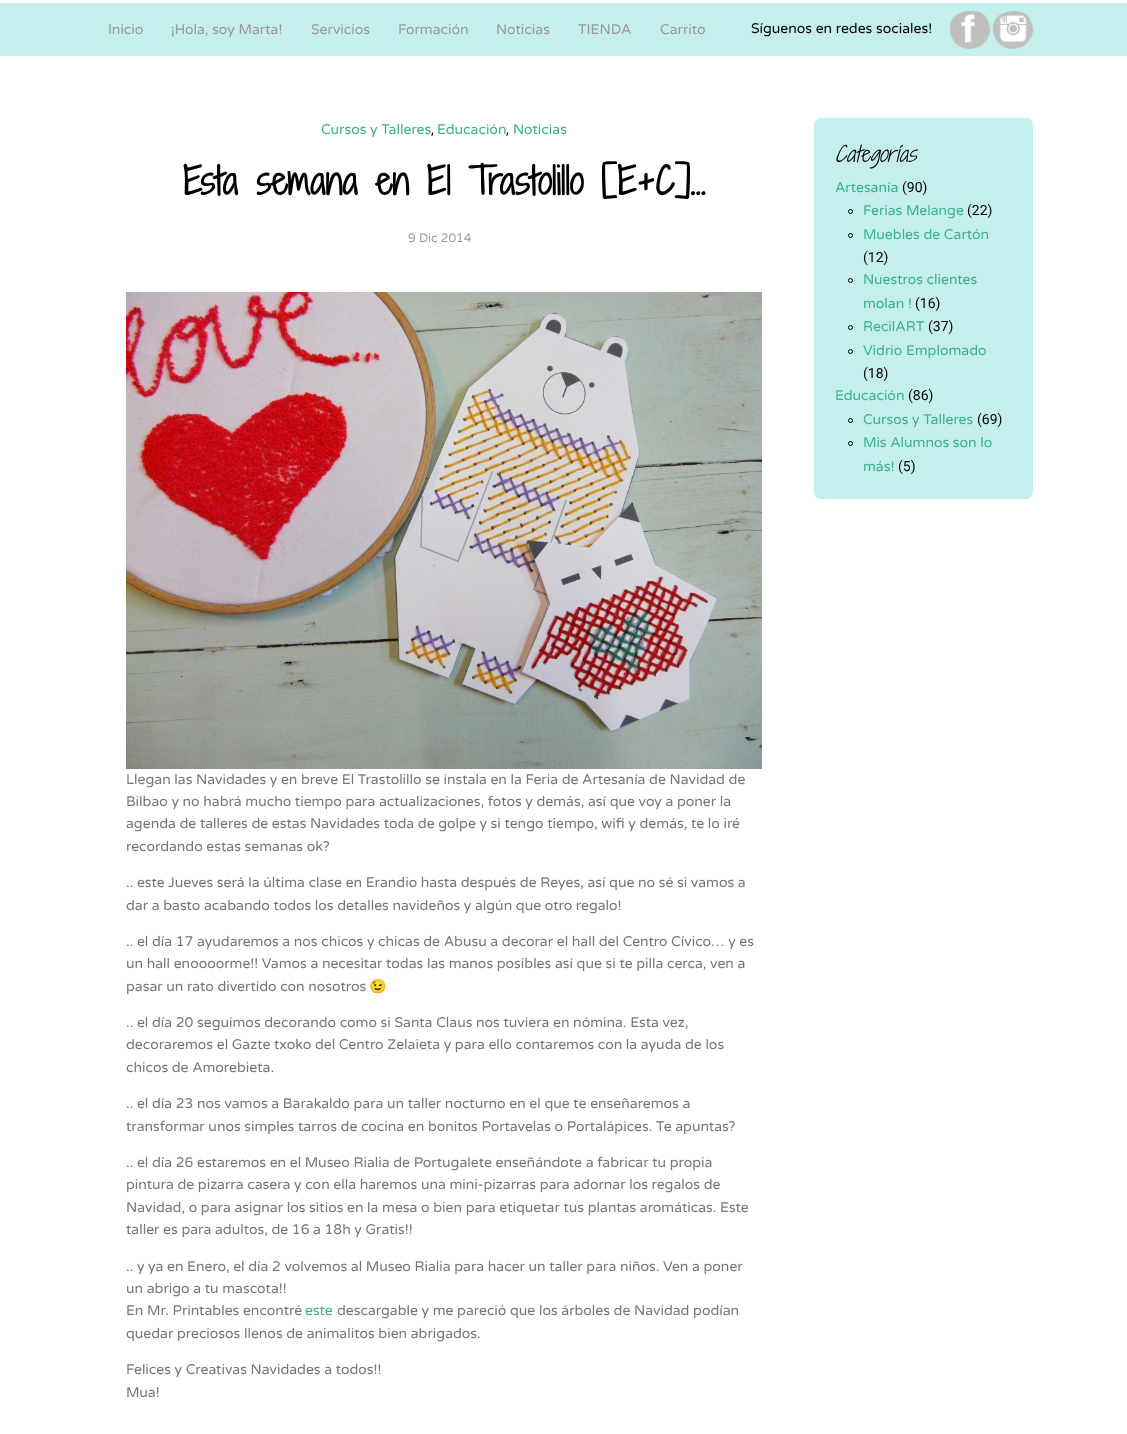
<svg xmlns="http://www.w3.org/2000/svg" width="1127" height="1434">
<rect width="100%" height="100%" fill="#fff"/>
<rect y="3" width="1127" height="53" fill="#c5efed"/>
<text x="108" y="34" style="font-family:Varela Round;font-size:14px;fill:#999">Inicio</text>
<text x="171" y="34" style="font-family:Varela Round;font-size:14px;fill:#999">¡Hola, soy Marta!</text>
<text x="311" y="34" style="font-family:Varela Round;font-size:14px;fill:#999">Servicios</text>
<text x="398" y="34" style="font-family:Varela Round;font-size:14px;fill:#999">Formación</text>
<text x="496" y="34" style="font-family:Varela Round;font-size:14px;fill:#999">Noticias</text>
<text x="578" y="34" style="font-family:Varela Round;font-size:14px;fill:#999">TIENDA</text>
<text x="660" y="34" style="font-family:Varela Round;font-size:14px;fill:#999">Carrito</text>
<text x="751" y="33" style="font-family:Varela Round;font-size:14px;fill:#000">Síguenos en redes sociales!</text>
<image x="950" y="10" width="40" height="39" href="media/1.png"/>
<image x="993" y="11" width="40" height="38" href="media/2.png"/>
<text x="321" y="134" style="font-family:Varela Round;font-size:14px;fill:#3bb18f">Cursos y Talleres</text>
<text x="431" y="134" style="font-family:Roboto;font-size:14px;fill:#000">,</text>
<text x="437" y="134" style="font-family:Varela Round;font-size:14px;fill:#3bb18f">Educación</text>
<text x="506" y="134" style="font-family:Roboto;font-size:14px;fill:#000">,</text>
<text x="513" y="134" style="font-family:Varela Round;font-size:14px;fill:#3bb18f">Noticias</text>
<text x="183" y="195" style="font-family:Shadows Into Light Two;font-size:36.2px;font-weight:bold;fill:#000">Esta semana en El Trastolillo [E+C]…</text>
<text x="408" y="242" style="font-family:Varela Round;font-size:12.25px;fill:#999">9 Dic 2014</text>
<image x="126" y="292" width="636" height="477" href="media/3.png"/>
<text x="126" y="784" style="font-family:Varela Round;font-size:14px;fill:#777">Llegan las Navidades y en breve El Trastolillo se instala en la Feria de Artesanía de Navidad de</text>
<text x="126" y="806" style="font-family:Varela Round;font-size:14px;fill:#777">Bilbao y no habrá mucho tiempo para actualizaciones, fotos y demás, así que voy a poner la</text>
<text x="126" y="828" style="font-family:Varela Round;font-size:14px;fill:#777">agenda de talleres de estas Navidades toda de golpe y si tengo tiempo, wifi y demás, te lo iré</text>
<text x="126" y="851" style="font-family:Varela Round;font-size:14px;fill:#777">recordando estas semanas ok?</text>
<text x="126" y="887" style="font-family:Varela Round;font-size:14px;fill:#777">.. este Jueves será la última clase en Erandio hasta después de Reyes, así que no sé si vamos a</text>
<text x="126" y="910" style="font-family:Varela Round;font-size:14px;fill:#777">dar a basto acabando todos los detalles navideños y algún que otro regalo!</text>
<text x="126" y="946" style="font-family:Varela Round;font-size:14px;fill:#777">.. el día 17 ayudaremos a nos chicos y chicas de Abusu a decorar el hall del Centro Cívico… y es</text>
<text x="126" y="968" style="font-family:Varela Round;font-size:14px;fill:#777">un hall enoooorme!! Vamos a necesitar todas las manos posibles así que si te pilla cerca, ven a</text>
<text x="126" y="991" style="font-family:Varela Round;font-size:14px;fill:#777">pasar un rato divertido con nosotros</text>
<text x="369" y="991" style="font-family:Noto Color Emoji;font-size:14px;fill:#777">😉</text>
<text x="126" y="1027" style="font-family:Varela Round;font-size:14px;fill:#777">.. el día 20 seguimos decorando como si Santa Claus nos tuviera en nómina. Esta vez,</text>
<text x="126" y="1049" style="font-family:Varela Round;font-size:14px;fill:#777">decoraremos el Gazte txoko del Centro Zelaieta y para ello contaremos con la ayuda de los</text>
<text x="126" y="1072" style="font-family:Varela Round;font-size:14px;fill:#777">chicos de Amorebieta.</text>
<text x="126" y="1108" style="font-family:Varela Round;font-size:14px;fill:#777">.. el día 23 nos vamos a Barakaldo para un taller nocturno en el que te enseñaremos a</text>
<text x="126" y="1131" style="font-family:Varela Round;font-size:14px;fill:#777">transformar unos simples tarros de cocina en bonitos Portavelas o Portalápices. Te apuntas?</text>
<text x="126" y="1167" style="font-family:Varela Round;font-size:14px;fill:#777">.. el día 26 estaremos en el Museo Rialia de Portugalete enseñándote a fabricar tu propia</text>
<text x="126" y="1189" style="font-family:Varela Round;font-size:14px;fill:#777">pintura de pizarra casera y con ella haremos una mini-pizarras para adornar los regalos de</text>
<text x="126" y="1212" style="font-family:Varela Round;font-size:14px;fill:#777">Navidad, o para asignar los sitios en la mesa o bien para etiquetar tus plantas aromáticas. Este</text>
<text x="126" y="1234" style="font-family:Varela Round;font-size:14px;fill:#777">taller es para adultos, de 16 a 18h y Gratis!!</text>
<text x="126" y="1271" style="font-family:Varela Round;font-size:14px;fill:#777">.. y ya en Enero, el día 2 volvemos al Museo Rialia para hacer un taller para niños. Ven a poner</text>
<text x="126" y="1293" style="font-family:Varela Round;font-size:14px;fill:#777">un abrigo a tu mascota!!</text>
<text x="126" y="1315" style="font-family:Varela Round;font-size:14px;fill:#777">En Mr. Printables encontré</text>
<text x="305" y="1315" style="font-family:Varela Round;font-size:14px;fill:#3bb18f">este</text>
<text x="337" y="1315" style="font-family:Varela Round;font-size:14px;fill:#777">descargable y me pareció que los árboles de Navidad podían</text>
<text x="126" y="1338" style="font-family:Varela Round;font-size:14px;fill:#777">quedar preciosos llenos de animalitos bien abrigados.</text>
<text x="126" y="1374" style="font-family:Varela Round;font-size:14px;fill:#777">Felices y Creativas Navidades a todos!!</text>
<text x="126" y="1397" style="font-family:Varela Round;font-size:14px;fill:#777">Mua!</text>
<rect x="814" y="118" width="219" height="381" rx="7" fill="#c5efed"/>
<text x="835" y="162" style="font-family:Shadows Into Light Two;font-size:21px;font-weight:300;font-style:italic;fill:#000">Categorías</text>
<text x="835" y="192" style="font-family:Varela Round;font-size:14px;fill:#3bb18f">Artesanía</text>
<text x="902" y="192" style="font-family:Roboto;font-size:14px;fill:#000">(90)</text>
<circle cx="850.5" cy="211.5" r="2" fill="none" stroke="#000"/>
<text x="863" y="215" style="font-family:Varela Round;font-size:14px;fill:#3bb18f">Ferias Melange</text>
<text x="967" y="215" style="font-family:Roboto;font-size:14px;fill:#000">(22)</text>
<circle cx="850.5" cy="235.5" r="2" fill="none" stroke="#000"/>
<text x="863" y="239" style="font-family:Varela Round;font-size:14px;fill:#3bb18f">Muebles de Cartón</text>
<text x="863" y="262" style="font-family:Roboto;font-size:14px;fill:#000">(12)</text>
<circle cx="850.5" cy="280.5" r="2" fill="none" stroke="#000"/>
<text x="863" y="284" style="font-family:Varela Round;font-size:14px;fill:#3bb18f">Nuestros clientes</text>
<text x="863" y="308" style="font-family:Varela Round;font-size:14px;fill:#3bb18f">molan !</text>
<text x="915" y="308" style="font-family:Roboto;font-size:14px;fill:#000">(16)</text>
<circle cx="850.5" cy="327.5" r="2" fill="none" stroke="#000"/>
<text x="863" y="331" style="font-family:Varela Round;font-size:14px;fill:#3bb18f">RecilART</text>
<text x="928" y="331" style="font-family:Roboto;font-size:14px;fill:#000">(37)</text>
<circle cx="850.5" cy="351.5" r="2" fill="none" stroke="#000"/>
<text x="863" y="355" style="font-family:Varela Round;font-size:14px;fill:#3bb18f">Vidrio Emplomado</text>
<text x="863" y="378" style="font-family:Roboto;font-size:14px;fill:#000">(18)</text>
<text x="835" y="400" style="font-family:Varela Round;font-size:14px;fill:#3bb18f">Educación</text>
<text x="908" y="400" style="font-family:Roboto;font-size:14px;fill:#000">(86)</text>
<circle cx="850.5" cy="420.5" r="2" fill="none" stroke="#000"/>
<text x="863" y="424" style="font-family:Varela Round;font-size:14px;fill:#3bb18f">Cursos y Talleres</text>
<text x="977" y="424" style="font-family:Roboto;font-size:14px;fill:#000">(69)</text>
<circle cx="850.5" cy="443.5" r="2" fill="none" stroke="#000"/>
<text x="863" y="447" style="font-family:Varela Round;font-size:14px;fill:#3bb18f">Mis Alumnos son lo</text>
<text x="863" y="471" style="font-family:Varela Round;font-size:14px;fill:#3bb18f">más!</text>
<text x="898" y="471" style="font-family:Roboto;font-size:14px;fill:#000">(5)</text>
</svg>
